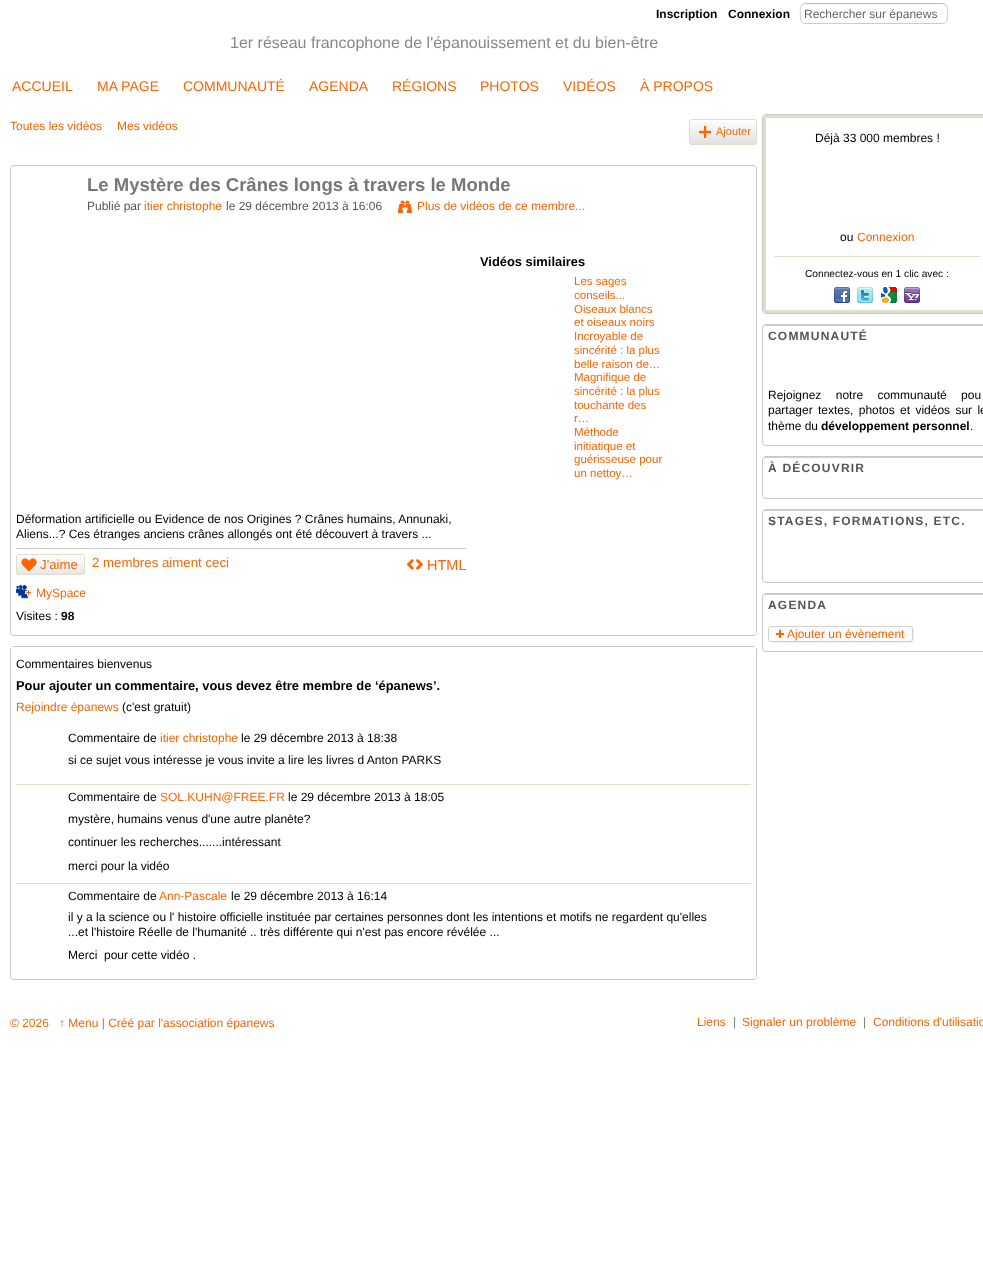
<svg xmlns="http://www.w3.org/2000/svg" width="983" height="1285">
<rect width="100%" height="100%" fill="#fff"/>
<text x="656" y="18" style="font-family:Liberation Sans;font-size:12px;font-weight:bold;fill:#000">Inscription</text>
<text x="728" y="18" style="font-family:Liberation Sans;font-size:12px;font-weight:bold;fill:#000">Connexion</text>
<path d="M802 5l2.5-1.5h115.5h23l3 1.5" fill="none" stroke="#bbb"/>
<path d="M946 5c2.5 2.5 1.5 9 1.5 12c0 3-1 6.5-4.5 6.5h-138c-3.5 0-4.5-3.5-4.5-6.5c0-3-1-9.5 1.5-12" fill="none" stroke="#ccc"/>
<text x="804" y="18" style="font-family:Liberation Sans;font-size:12px;fill:#666">Rechercher sur épanews</text>
<text x="230" y="48" style="font-family:Liberation Sans;font-size:16px;fill:#888">1er réseau francophone de l'épanouissement et du bien-être</text>
<text x="12" y="91" style="font-family:Liberation Sans;font-size:14px;fill:#ff6200">ACCUEIL</text>
<text x="97" y="91" style="font-family:Liberation Sans;font-size:14px;fill:#ff6200">MA PAGE</text>
<text x="183" y="91" style="font-family:Liberation Sans;font-size:14px;fill:#ff6200">COMMUNAUTÉ</text>
<text x="309" y="91" style="font-family:Liberation Sans;font-size:14px;fill:#ff6200">AGENDA</text>
<text x="392" y="91" style="font-family:Liberation Sans;font-size:14px;fill:#ff6200">RÉGIONS</text>
<text x="480" y="91" style="font-family:Liberation Sans;font-size:14px;fill:#ff6200">PHOTOS</text>
<text x="563" y="91" style="font-family:Liberation Sans;font-size:14px;fill:#ff6200">VIDÉOS</text>
<text x="640" y="91" style="font-family:Liberation Sans;font-size:14px;fill:#ff6200">À PROPOS</text>
<text x="10" y="130" style="font-family:Liberation Sans;font-size:12px;fill:#ff6200">Toutes les vidéos</text>
<text x="117" y="130" style="font-family:Liberation Sans;font-size:12px;fill:#ff6200">Mes vidéos</text>
<image x="689" y="122" width="68" height="23" href="media/1.png"/>
<rect x="689.5" y="119.5" width="67" height="25" rx="2.5" fill="none" stroke="#dfddcb"/>
<image x="699" y="126" width="12" height="12" href="media/2.png"/>
<text x="716" y="135" style="font-family:Liberation Sans;font-size:11px;fill:#ff6200">Ajouter</text>
<rect x="10.5" y="165.5" width="746" height="470" rx="3.5" fill="none" stroke="#c7c7c7"/>
<text x="87" y="191" style="font-family:Liberation Sans;font-size:18.5px;font-weight:bold;fill:#777">Le Mystère des Crânes longs à travers le Monde</text>
<text x="87" y="210" style="font-family:Liberation Sans;font-size:12px;fill:#555">Publié par</text>
<text x="144" y="210" style="font-family:Liberation Sans;font-size:12px;fill:#ff6200">itier christophe</text>
<text x="226" y="210" style="font-family:Liberation Sans;font-size:12px;fill:#555">le 29 décembre 2013 à 16:06</text>
<image x="398" y="200" width="14" height="13" href="media/3.png"/>
<text x="417" y="210" style="font-family:Liberation Sans;font-size:12px;fill:#ff6200">Plus de vidéos de ce membre...</text>
<rect x="11" y="632" width="745" height="2" fill="#fff"/>
<text x="480" y="266" style="font-family:Liberation Sans;font-size:12.9px;font-weight:bold;fill:#000">Vidéos similaires</text>
<text x="574" y="285" style="font-family:Liberation Sans;font-size:11.5px;fill:#ff6200">Les sages</text>
<text x="574" y="299" style="font-family:Liberation Sans;font-size:11.5px;fill:#ff6200">conseils...</text>
<text x="574" y="313" style="font-family:Liberation Sans;font-size:11.5px;fill:#ff6200">Oiseaux blancs</text>
<text x="574" y="326" style="font-family:Liberation Sans;font-size:11.5px;fill:#ff6200">et oiseaux noirs</text>
<text x="574" y="340" style="font-family:Liberation Sans;font-size:11.5px;fill:#ff6200">Incroyable de</text>
<text x="574" y="354" style="font-family:Liberation Sans;font-size:11.5px;fill:#ff6200">sincérité : la plus</text>
<text x="574" y="368" style="font-family:Liberation Sans;font-size:11.5px;fill:#ff6200">belle raison de…</text>
<text x="574" y="381" style="font-family:Liberation Sans;font-size:11.5px;fill:#ff6200">Magnifique de</text>
<text x="574" y="395" style="font-family:Liberation Sans;font-size:11.5px;fill:#ff6200">sincérité : la plus</text>
<text x="574" y="409" style="font-family:Liberation Sans;font-size:11.5px;fill:#ff6200">touchante des</text>
<text x="574" y="422" style="font-family:Liberation Sans;font-size:11.5px;fill:#ff6200">r…</text>
<text x="574" y="436" style="font-family:Liberation Sans;font-size:11.5px;fill:#ff6200">Méthode</text>
<text x="574" y="450" style="font-family:Liberation Sans;font-size:11.5px;fill:#ff6200">initiatique et</text>
<text x="574" y="463" style="font-family:Liberation Sans;font-size:11.5px;fill:#ff6200">guérisseuse pour</text>
<text x="574" y="477" style="font-family:Liberation Sans;font-size:11.5px;fill:#ff6200">un nettoy…</text>
<rect x="16" y="548" width="450" height="1" fill="#ccc"/>
<text x="16" y="523" style="font-family:Liberation Sans;font-size:12px;fill:#000">Déformation artificielle ou Evidence de nos Origines ? Crânes humains, Annunaki,</text>
<text x="16" y="538" style="font-family:Liberation Sans;font-size:12px;fill:#000">Aliens...? Ces étranges anciens crânes allongés ont été découvert à travers ...</text>
<image x="16" y="557" width="69" height="18" href="media/4.png"/>
<rect x="16.5" y="554.5" width="68" height="20" rx="2.5" fill="none" stroke="#dfddcb"/>
<image x="21" y="558" width="16" height="14" href="media/5.png"/>
<text x="40" y="569" style="font-family:Liberation Sans;font-size:13.25px;fill:#ff6200">J'aime</text>
<text x="92" y="567" style="font-family:Liberation Sans;font-size:13.25px;fill:#ff6200">2 membres aiment ceci</text>
<image x="16" y="585" width="15" height="14" href="media/6.png"/>
<text x="36" y="597" style="font-family:Liberation Sans;font-size:12px;fill:#ff6200">MySpace</text>
<text x="16" y="620" style="font-family:Liberation Sans;font-size:12px;fill:#000">Visites :</text>
<text x="61" y="620" style="font-family:Liberation Sans;font-size:12px;font-weight:bold;fill:#000">98</text>
<image x="407" y="559" width="16" height="11" href="media/7.png"/>
<text x="427" y="570" style="font-family:Liberation Sans;font-size:14.5px;fill:#ff6200">HTML</text>
<rect x="10.5" y="646.5" width="746" height="333" rx="3.5" fill="none" stroke="#c7c7c7"/>
<rect x="11" y="647" width="745" height="3" fill="#fff"/>
<text x="16" y="668" style="font-family:Liberation Sans;font-size:12px;fill:#000">Commentaires bienvenus</text>
<text x="16" y="690" style="font-family:Liberation Sans;font-size:12.9px;font-weight:bold;fill:#000">Pour ajouter un commentaire, vous devez être membre de ‘épanews’.</text>
<text x="16" y="711" style="font-family:Liberation Sans;font-size:12px;fill:#ff6200">Rejoindre épanews</text>
<text x="122" y="711" style="font-family:Liberation Sans;font-size:12px;fill:#000">(c'est gratuit)</text>
<rect x="11" y="976" width="745" height="2" fill="#fff"/>
<rect x="16" y="784" width="735" height="1" fill="#dfddcb"/>
<text x="68" y="742" style="font-family:Liberation Sans;font-size:12px;fill:#000">Commentaire de</text>
<text x="160" y="742" style="font-family:Liberation Sans;font-size:12px;fill:#ff6200">itier christophe</text>
<text x="241" y="742" style="font-family:Liberation Sans;font-size:12px;fill:#000">le 29 décembre 2013 à 18:38</text>
<text x="68" y="764" style="font-family:Liberation Sans;font-size:12px;fill:#000">si ce sujet vous intéresse je vous invite a lire les livres d Anton PARKS</text>
<rect x="16" y="883" width="735" height="1" fill="#dfddcb"/>
<text x="68" y="801" style="font-family:Liberation Sans;font-size:12px;fill:#000">Commentaire de</text>
<text x="160" y="801" style="font-family:Liberation Sans;font-size:12px;fill:#ff6200">SOL.KUHN@FREE.FR</text>
<text x="288" y="801" style="font-family:Liberation Sans;font-size:12px;fill:#000">le 29 décembre 2013 à 18:05</text>
<text x="68" y="823" style="font-family:Liberation Sans;font-size:12px;fill:#000">mystère, humains venus d'une autre planète?</text>
<text x="68" y="846" style="font-family:Liberation Sans;font-size:12px;fill:#000">continuer les recherches.......intéressant</text>
<text x="68" y="870" style="font-family:Liberation Sans;font-size:12px;fill:#000">merci pour la vidéo</text>
<text x="68" y="900" style="font-family:Liberation Sans;font-size:12px;fill:#000">Commentaire de</text>
<text x="159" y="900" style="font-family:Liberation Sans;font-size:12px;fill:#ff6200">Ann-Pascale</text>
<text x="231" y="900" style="font-family:Liberation Sans;font-size:12px;fill:#000">le 29 décembre 2013 à 16:14</text>
<text x="68" y="921" style="font-family:Liberation Sans;font-size:12px;fill:#000">il y a la science ou l' histoire officielle instituée par certaines personnes dont les intentions et motifs ne regardent qu'elles</text>
<text x="68" y="936" style="font-family:Liberation Sans;font-size:12px;fill:#000">...et l'histoire Réelle de l'humanité .. très différente qui n'est pas encore révélée ...</text>
<text x="68" y="959" style="font-family:Liberation Sans;font-size:12px;fill:#000" xml:space="preserve">Merci  pour cette vidéo .</text>
<rect x="762.5" y="114.5" width="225" height="199" rx="3.5" fill="none" stroke="#c7c7c7"/>
<rect x="764.5" y="116.5" width="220" height="195" fill="none" stroke="#dfddcb" stroke-width="3"/>
<text x="815" y="142" style="font-family:Liberation Sans;font-size:12px;fill:#000">Déjà 33 000 membres !</text>
<text x="840" y="241" style="font-family:Liberation Sans;font-size:12px;fill:#000">ou</text>
<text x="857" y="241" style="font-family:Liberation Sans;font-size:12px;fill:#ff6200">Connexion</text>
<rect x="774" y="256" width="206" height="1" fill="#dfddcb"/>
<text x="805" y="277" style="font-family:Liberation Sans;font-size:10.2px;fill:#000">Connectez-vous en 1 clic avec :</text>
<image x="834" y="287" width="16" height="16" href="media/8.png"/>
<image x="857" y="287" width="16" height="16" href="media/9.png"/>
<image x="881" y="287" width="16" height="16" href="media/10.png"/>
<image x="904" y="287" width="16" height="16" href="media/11.png"/>
<rect x="762.5" y="324.5" width="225" height="121" rx="3.5" fill="none" stroke="#c7c7c7"/>
<rect x="763" y="325" width="220" height="1" fill="#d0d0d0"/>
<text x="768" y="340" style="font-family:Liberation Sans;font-size:12px;font-weight:bold;letter-spacing:1.2px;fill:#555">COMMUNAUTÉ</text>
<text x="768" y="399" word-spacing="11" style="font-family:Liberation Sans;font-size:12px;fill:#000">Rejoignez notre communauté pou</text>
<text x="768" y="414" word-spacing="2" style="font-family:Liberation Sans;font-size:12px;fill:#000">partager textes, photos et vidéos sur le</text>
<text x="768" y="430" style="font-family:Liberation Sans;font-size:12px;fill:#000">thème du</text>
<text x="821" y="430" style="font-family:Liberation Sans;font-size:12px;font-weight:bold;fill:#000">développement personnel</text>
<text x="970" y="430" style="font-family:Liberation Sans;font-size:12px;fill:#000">.</text>
<rect x="762.5" y="456.5" width="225" height="42" rx="3.5" fill="none" stroke="#c7c7c7"/>
<rect x="763" y="457" width="220" height="1" fill="#d0d0d0"/>
<text x="768" y="472" style="font-family:Liberation Sans;font-size:12px;font-weight:bold;letter-spacing:1.2px;fill:#555">À DÉCOUVRIR</text>
<rect x="762.5" y="509.5" width="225" height="73" rx="3.5" fill="none" stroke="#c7c7c7"/>
<rect x="763" y="510" width="220" height="1" fill="#d0d0d0"/>
<text x="768" y="525" style="font-family:Liberation Sans;font-size:12px;font-weight:bold;letter-spacing:1.2px;fill:#555">STAGES, FORMATIONS, ETC.</text>
<rect x="762.5" y="593.5" width="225" height="58" rx="3.5" fill="none" stroke="#c7c7c7"/>
<rect x="763" y="594" width="220" height="1" fill="#d0d0d0"/>
<text x="768" y="609" style="font-family:Liberation Sans;font-size:12px;font-weight:bold;letter-spacing:1.2px;fill:#555">AGENDA</text>
<rect x="769" y="627" width="145" height="16" rx="3" fill="#f2f2f2" filter="blur(0.5px)"/>
<rect x="768" y="626" width="145" height="16" rx="3" fill="#fcfcfc"/>
<image x="776" y="630" width="8" height="8" href="media/12.png"/>
<rect x="768.5" y="626.5" width="144" height="15" rx="2.5" fill="none" stroke="#d0d0d0"/>
<text x="787" y="638" style="font-family:Liberation Sans;font-size:12px;fill:#ff6200">Ajouter un évènement</text>
<text x="10" y="1027" style="font-family:Liberation Sans;font-size:12px;fill:#ff6200">© 2026</text>
<text x="59" y="1027" style="font-family:Liberation Sans;font-size:12px;fill:#ff6200">↑ Menu | Créé par l'association épanews</text>
<text x="697" y="1026" style="font-family:Liberation Sans;font-size:12px;fill:#ff6200">Liens</text>
<text x="733" y="1026" style="font-family:Liberation Sans;font-size:12px;fill:#7b7b6f">|</text>
<text x="742" y="1026" style="font-family:Liberation Sans;font-size:12px;fill:#ff6200">Signaler un problème</text>
<text x="863" y="1026" style="font-family:Liberation Sans;font-size:12px;fill:#7b7b6f">|</text>
<text x="873" y="1026" style="font-family:Liberation Sans;font-size:12px;fill:#ff6200">Conditions d'utilisatio</text>
</svg>
